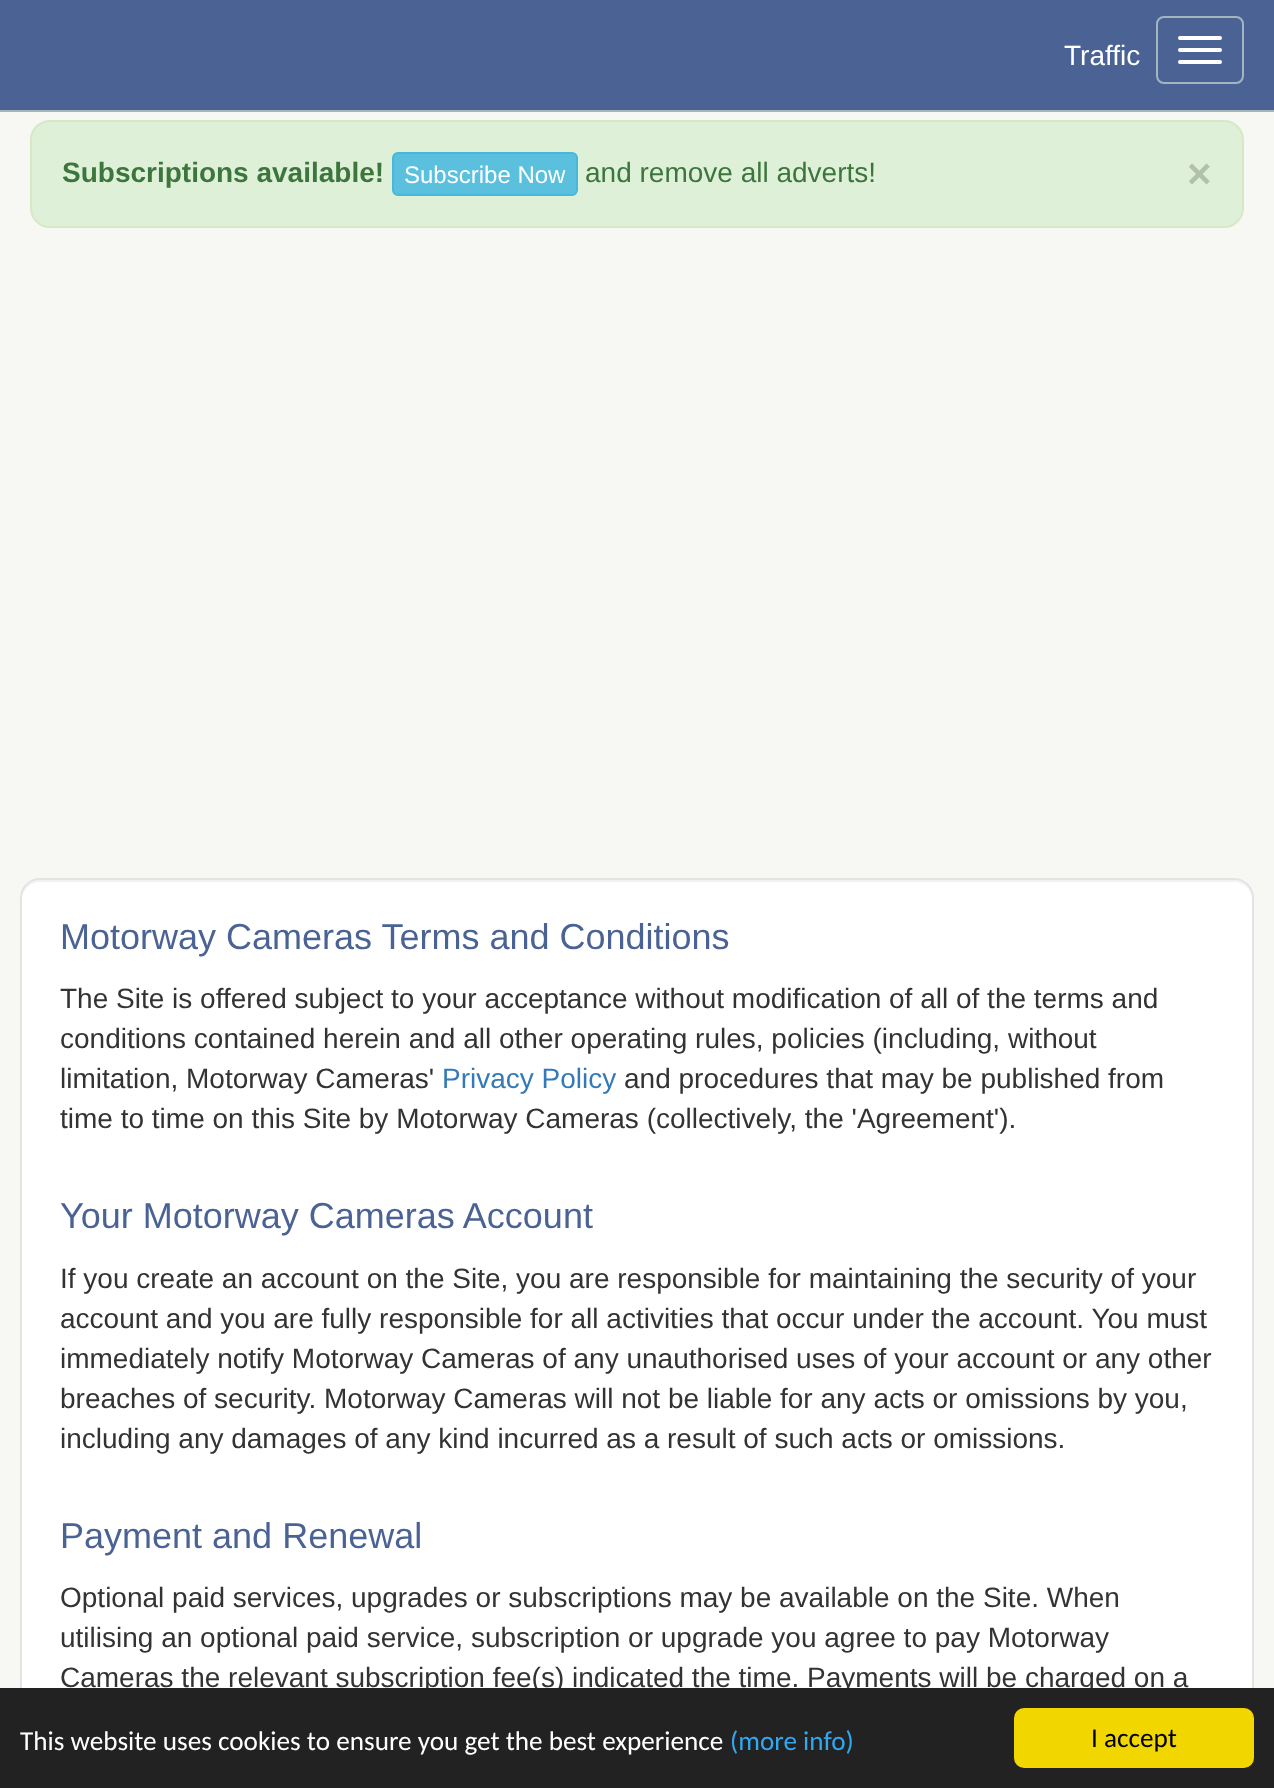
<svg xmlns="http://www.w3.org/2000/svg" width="1274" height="1788">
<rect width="100%" height="100%" fill="#f7f7f4"/>
<rect width="1274" height="110" fill="#4a6394"/>
<rect y="110" width="1274" height="2" fill="#a5b5bd"/>
<text x="1064" y="65" style="font-family:Liberation Sans;font-size:28px;fill:#fff">Traffic</text>
<rect x="1157" y="17" width="86" height="66" rx="7" fill="none" stroke="#a5b5bd" stroke-width="2"/>
<rect x="1178" y="36" width="44" height="4" rx="2" fill="#fff"/>
<rect x="1178" y="48" width="44" height="4" rx="2" fill="#fff"/>
<rect x="1178" y="60" width="44" height="4" rx="2" fill="#fff"/>
<rect x="31" y="121" width="1212" height="106" rx="19" fill="#dff0d8" stroke="#d6e9c6" stroke-width="2"/>
<text x="62" y="182" style="font-family:Liberation Sans;font-size:28px;font-weight:bold;fill:#3c763d">Subscriptions available!</text>
<rect x="393" y="153" width="184" height="42" rx="5" fill="#5bc0de" stroke="#46b8da" stroke-width="2"/>
<text x="404" y="183" style="font-family:Liberation Sans;font-size:24px;fill:#fff">Subscribe Now</text>
<text x="585" y="182" style="font-family:Liberation Sans;font-size:28px;fill:#3c763d">and remove all adverts!</text>
<text x="1187" y="188" style="font-family:Liberation Sans;font-size:42px;font-weight:bold;fill:#b2c0ad">×</text>
<rect x="20" y="878" width="1234" height="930" rx="20" fill="#fff"/>
<path d="M40 882h1194c10 0 18 8 18 18v-2c0-10-8-18-18-18h-1194c-10 0-18 8-18 18v2c0-10 8-18 18-18z" fill="#f2f2f2"/>
<rect x="21" y="879" width="1232" height="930" rx="19" fill="none" stroke="#e3e3e3" stroke-width="2"/>
<text x="60" y="949" style="font-family:Liberation Sans;font-size:36px;fill:#4a6394">Motorway Cameras Terms and Conditions</text>
<text x="60" y="1008" style="font-family:Liberation Sans;font-size:28px;fill:#333">The Site is offered subject to your acceptance without modification of all of the terms and</text>
<text x="60" y="1048" style="font-family:Liberation Sans;font-size:28px;fill:#333">conditions contained herein and all other operating rules, policies (including, without</text>
<text x="60" y="1088" style="font-family:Liberation Sans;font-size:28px;fill:#333">limitation, Motorway Cameras'</text>
<text x="442" y="1088" style="font-family:Liberation Sans;font-size:28px;fill:#337ab7">Privacy Policy</text>
<text x="624" y="1088" style="font-family:Liberation Sans;font-size:28px;fill:#333">and procedures that may be published from</text>
<text x="60" y="1128" style="font-family:Liberation Sans;font-size:28px;fill:#333">time to time on this Site by Motorway Cameras (collectively, the 'Agreement').</text>
<text x="60" y="1228" style="font-family:Liberation Sans;font-size:36px;fill:#4a6394">Your Motorway Cameras Account</text>
<text x="60" y="1288" style="font-family:Liberation Sans;font-size:28px;fill:#333">If you create an account on the Site, you are responsible for maintaining the security of your</text>
<text x="60" y="1328" style="font-family:Liberation Sans;font-size:28px;fill:#333">account and you are fully responsible for all activities that occur under the account. You must</text>
<text x="60" y="1368" style="font-family:Liberation Sans;font-size:28px;fill:#333">immediately notify Motorway Cameras of any unauthorised uses of your account or any other</text>
<text x="60" y="1408" style="font-family:Liberation Sans;font-size:28px;fill:#333">breaches of security. Motorway Cameras will not be liable for any acts or omissions by you,</text>
<text x="60" y="1448" style="font-family:Liberation Sans;font-size:28px;fill:#333">including any damages of any kind incurred as a result of such acts or omissions.</text>
<text x="60" y="1548" style="font-family:Liberation Sans;font-size:36px;fill:#4a6394">Payment and Renewal</text>
<text x="60" y="1607" style="font-family:Liberation Sans;font-size:28px;fill:#333">Optional paid services, upgrades or subscriptions may be available on the Site. When</text>
<text x="60" y="1647" style="font-family:Liberation Sans;font-size:28px;fill:#333">utilising an optional paid service, subscription or upgrade you agree to pay Motorway</text>
<text x="60" y="1687" style="font-family:Liberation Sans;font-size:28px;fill:#333">Cameras the relevant subscription fee(s) indicated the time. Payments will be charged on a</text>
<rect y="1688" width="1274" height="100" fill="#222"/>
<text x="20" y="1750" style="font-family:Carlito;font-size:27.2px;fill:#fff">This website uses cookies to ensure you get the best experience</text>
<text x="730" y="1750" style="font-family:Carlito;font-size:27.2px;fill:#31a8f0">(more info)</text>
<rect x="1014" y="1708" width="240" height="60" rx="10" fill="#f1d600"/>
<text x="1091" y="1747" style="font-family:Carlito;font-size:27.2px;fill:#000">I accept</text>
</svg>
